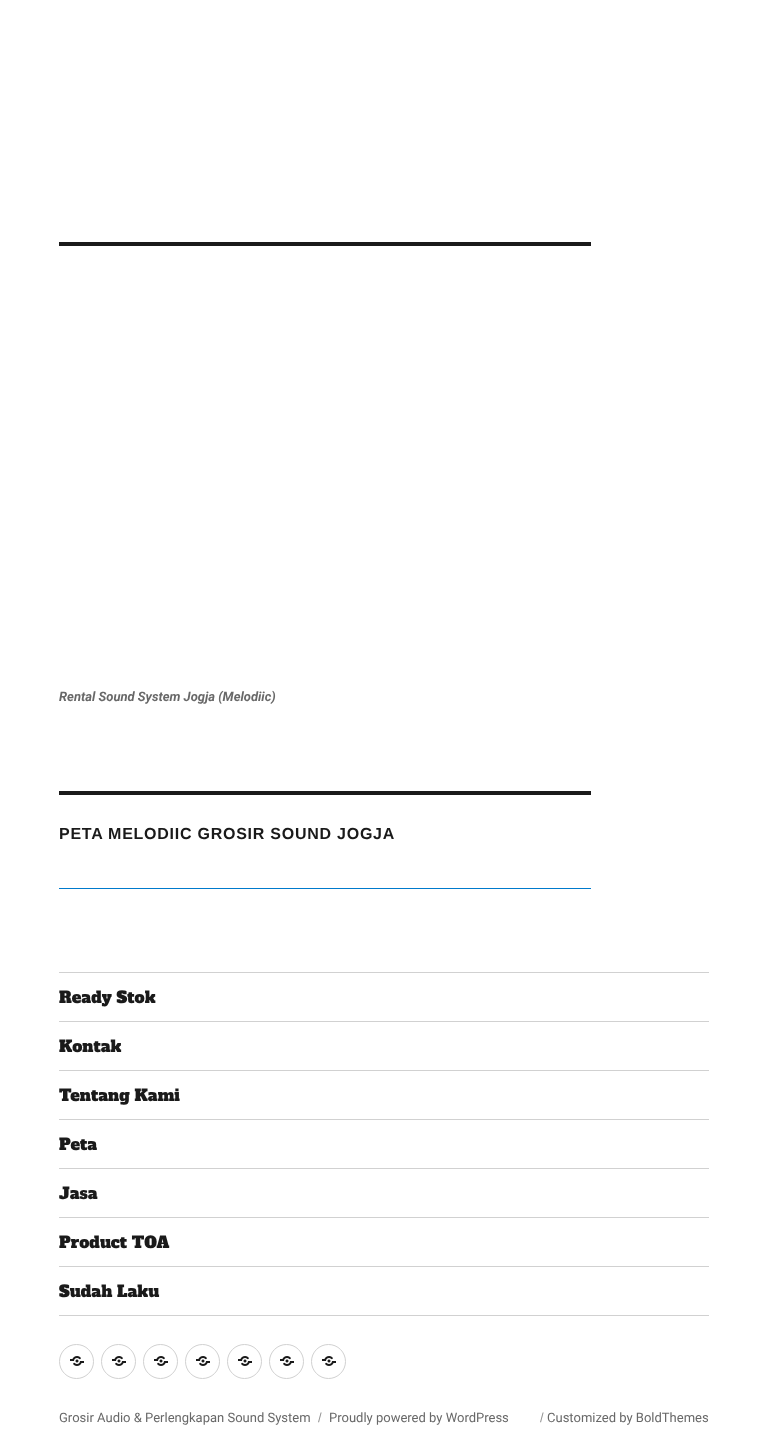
<svg xmlns="http://www.w3.org/2000/svg" width="768" height="1456">
<rect width="100%" height="100%" fill="#fff"/>
<rect x="59" y="242" width="532" height="4" fill="#1a1a1a"/>
<text x="59" y="701" style="font-family:Roboto;font-size:13px;font-weight:bold;font-style:italic;fill:#686868">Rental Sound System Jogja (Melodiic)</text>
<rect x="59" y="791" width="532" height="4" fill="#1a1a1a"/>
<text x="59" y="839" style="font-family:Liberation Sans;font-size:16px;font-weight:bold;letter-spacing:0.75px;fill:#1a1a1a">PETA MELODIIC GROSIR SOUND JOGJA</text>
<rect x="59" y="888" width="532" height="1" fill="#007acc"/>
<rect x="59" y="1315" width="650" height="1" fill="#d1d1d1"/>
<rect x="59" y="972" width="650" height="1" fill="#d1d1d1"/>
<text x="59" y="1003" style="font-family:Alfa Slab One;font-size:16px;fill:#1a1a1a">Ready Stok</text>
<rect x="59" y="1021" width="650" height="1" fill="#d1d1d1"/>
<text x="59" y="1052" style="font-family:Alfa Slab One;font-size:16px;fill:#1a1a1a">Kontak</text>
<rect x="59" y="1070" width="650" height="1" fill="#d1d1d1"/>
<text x="59" y="1101" style="font-family:Alfa Slab One;font-size:16px;fill:#1a1a1a">Tentang Kami</text>
<rect x="59" y="1119" width="650" height="1" fill="#d1d1d1"/>
<text x="59" y="1150" style="font-family:Alfa Slab One;font-size:16px;fill:#1a1a1a">Peta</text>
<rect x="59" y="1168" width="650" height="1" fill="#d1d1d1"/>
<text x="59" y="1199" style="font-family:Alfa Slab One;font-size:16px;fill:#1a1a1a">Jasa</text>
<rect x="59" y="1217" width="650" height="1" fill="#d1d1d1"/>
<text x="59" y="1248" style="font-family:Alfa Slab One;font-size:16px;fill:#1a1a1a">Product TOA</text>
<rect x="59" y="1266" width="650" height="1" fill="#d1d1d1"/>
<text x="59" y="1297" style="font-family:Alfa Slab One;font-size:16px;fill:#1a1a1a">Sudah Laku</text>
<circle cx="76.5" cy="1361.5" r="17" fill="none" stroke="#d1d1d1"/>
<image x="70" y="1356" width="14" height="10" href="media/1.png"/>
<circle cx="118.5" cy="1361.5" r="17" fill="none" stroke="#d1d1d1"/>
<image x="112" y="1356" width="14" height="10" href="media/1.png"/>
<circle cx="160.5" cy="1361.5" r="17" fill="none" stroke="#d1d1d1"/>
<image x="154" y="1356" width="14" height="10" href="media/1.png"/>
<circle cx="202.5" cy="1361.5" r="17" fill="none" stroke="#d1d1d1"/>
<image x="196" y="1356" width="14" height="10" href="media/1.png"/>
<circle cx="244.5" cy="1361.5" r="17" fill="none" stroke="#d1d1d1"/>
<image x="238" y="1356" width="14" height="10" href="media/1.png"/>
<circle cx="286.5" cy="1361.5" r="17" fill="none" stroke="#d1d1d1"/>
<image x="280" y="1356" width="14" height="10" href="media/1.png"/>
<circle cx="328.5" cy="1361.5" r="17" fill="none" stroke="#d1d1d1"/>
<image x="322" y="1356" width="14" height="10" href="media/1.png"/>
<text x="59" y="1422" style="font-family:Roboto;font-size:13px;fill:#686868">Grosir Audio &amp; Perlengkapan Sound System</text>
<text x="318" y="1422" style="font-family:Liberation Sans;font-size:13px;fill:#959595">/</text>
<text x="329" y="1422" style="font-family:Roboto;font-size:13px;fill:#686868">Proudly powered by WordPress</text>
<text x="540" y="1422" style="font-family:Liberation Sans;font-size:13px;fill:#959595">/</text>
<text x="547" y="1422" style="font-family:Roboto;font-size:13px;fill:#686868">Customized by BoldThemes</text>
</svg>
